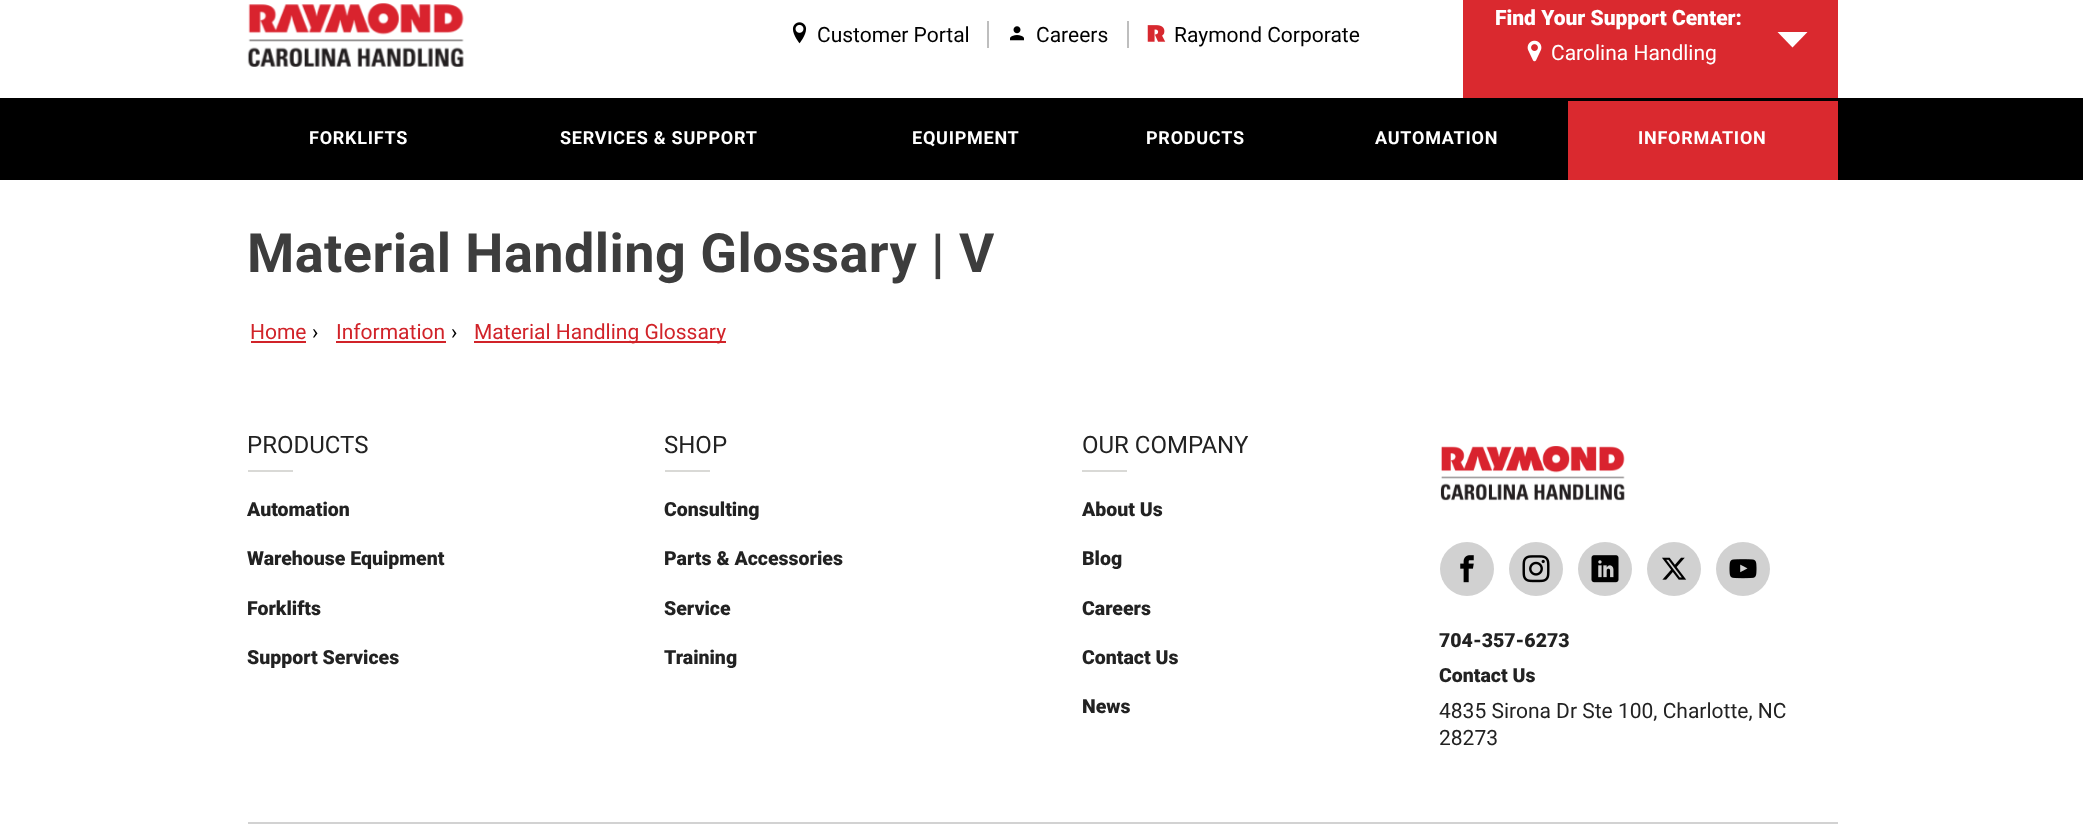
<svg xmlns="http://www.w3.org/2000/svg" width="2083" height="839">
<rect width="100%" height="100%" fill="#fff"/>
<image x="247" y="3" width="217" height="64" href="media/1.png"/>
<image x="792" y="22" width="15" height="22" href="media/2.png"/>
<text x="817" y="42" style="font-family:Roboto;font-size:21px;fill:#000">Customer Portal</text>
<rect x="987" y="21" width="2" height="27" fill="#bebebe"/>
<image x="1010" y="26" width="14" height="15" href="media/3.png"/>
<text x="1036" y="42" style="font-family:Roboto;font-size:21px;fill:#000">Careers</text>
<rect x="1127" y="21" width="2" height="27" fill="#bebebe"/>
<image x="1147" y="25" width="19" height="17" href="media/4.png"/>
<text x="1174" y="42" style="font-family:Roboto;font-size:21px;fill:#000">Raymond Corporate</text>
<rect x="1463" width="375" height="98" fill="#da292f"/>
<text x="1495" y="25" style="font-family:Roboto;font-size:21px;font-weight:900;fill:#fff">Find Your Support Center:</text>
<path d="M1792.5 47.5l15-15.5h-30z" fill="#fff"/>
<image x="1527" y="40" width="15" height="22" href="media/5.png"/>
<text x="1551" y="60" style="font-family:Roboto;font-size:21px;fill:#fff">Carolina Handling</text>
<rect y="98" width="2083" height="82" fill="#000"/>
<text x="309" y="144" style="font-family:Roboto;font-size:18px;font-weight:bold;letter-spacing:0.75px;fill:#fff">FORKLIFTS</text>
<text x="560" y="144" style="font-family:Roboto;font-size:18px;font-weight:bold;letter-spacing:0.75px;fill:#fff">SERVICES &amp; SUPPORT</text>
<text x="912" y="144" style="font-family:Roboto;font-size:18px;font-weight:bold;letter-spacing:0.75px;fill:#fff">EQUIPMENT</text>
<text x="1146" y="144" style="font-family:Roboto;font-size:18px;font-weight:bold;letter-spacing:0.75px;fill:#fff">PRODUCTS</text>
<text x="1375" y="144" style="font-family:Roboto;font-size:18px;font-weight:bold;letter-spacing:0.75px;fill:#fff">AUTOMATION</text>
<rect x="1568" y="101" width="270" height="79" fill="#da292f"/>
<text x="1638" y="144" style="font-family:Roboto;font-size:18px;font-weight:bold;letter-spacing:0.75px;fill:#fff">INFORMATION</text>
<text x="247" y="272" style="font-family:Roboto;font-size:54px;font-weight:bold;letter-spacing:0.45px;fill:#3d3d3d">Material Handling Glossary | V</text>
<text x="250" y="339" style="font-family:Roboto;font-size:21px;fill:#d12329">Home</text>
<rect x="251" y="341" width="55" height="2" fill="#d12329"/>
<text x="312" y="339" style="font-family:Roboto;font-size:21px;fill:#000">›</text>
<text x="336" y="339" style="font-family:Roboto;font-size:21px;fill:#d12329">Information</text>
<rect x="336" y="341" width="110" height="2" fill="#d12329"/>
<text x="451" y="339" style="font-family:Roboto;font-size:21px;fill:#000">›</text>
<rect x="474" y="341" width="252" height="2" fill="#d12329"/>
<text x="474" y="339" style="font-family:Roboto;font-size:21px;fill:#d12329">Material Handling Glossary</text>
<rect x="248" y="822" width="1590" height="2" fill="#d2d2d2"/>
<text x="247" y="453" style="font-family:Roboto;font-size:24px;fill:#222">PRODUCTS</text>
<rect x="248" y="470" width="45" height="2" fill="#d9d9d6"/>
<text x="247" y="516" style="font-family:Roboto;font-size:19.5px;font-weight:900;fill:#222">Automation</text>
<text x="247" y="565" style="font-family:Roboto;font-size:19.5px;font-weight:900;fill:#222">Warehouse Equipment</text>
<text x="247" y="615" style="font-family:Roboto;font-size:19.5px;font-weight:900;fill:#222">Forklifts</text>
<text x="247" y="664" style="font-family:Roboto;font-size:19.5px;font-weight:900;fill:#222">Support Services</text>
<text x="664" y="453" style="font-family:Roboto;font-size:24px;fill:#222">SHOP</text>
<rect x="665" y="470" width="45" height="2" fill="#d9d9d6"/>
<text x="664" y="516" style="font-family:Roboto;font-size:19.5px;font-weight:900;fill:#222">Consulting</text>
<text x="664" y="565" style="font-family:Roboto;font-size:19.5px;font-weight:900;fill:#222">Parts &amp; Accessories</text>
<text x="664" y="615" style="font-family:Roboto;font-size:19.5px;font-weight:900;fill:#222">Service</text>
<text x="664" y="664" style="font-family:Roboto;font-size:19.5px;font-weight:900;fill:#222">Training</text>
<text x="1082" y="453" style="font-family:Roboto;font-size:24px;fill:#222">OUR COMPANY</text>
<rect x="1082" y="470" width="45" height="2" fill="#d9d9d6"/>
<text x="1082" y="516" style="font-family:Roboto;font-size:19.5px;font-weight:900;fill:#222">About Us</text>
<text x="1082" y="565" style="font-family:Roboto;font-size:19.5px;font-weight:900;fill:#222">Blog</text>
<text x="1082" y="615" style="font-family:Roboto;font-size:19.5px;font-weight:900;fill:#222">Careers</text>
<text x="1082" y="664" style="font-family:Roboto;font-size:19.5px;font-weight:900;fill:#222">Contact Us</text>
<text x="1082" y="713" style="font-family:Roboto;font-size:19.5px;font-weight:900;fill:#222">News</text>
<image x="1440" y="446" width="185" height="55" href="media/6.png"/>
<circle cx="1467" cy="569" r="27" fill="#d1d1d1"/>
<image x="1460" y="555" width="14" height="28" href="media/7.png"/>
<circle cx="1536" cy="569" r="27" fill="#d1d1d1"/>
<image x="1522" y="555" width="28" height="28" href="media/8.png"/>
<circle cx="1605" cy="569" r="27" fill="#d1d1d1"/>
<image x="1591" y="555" width="28" height="28" href="media/9.png"/>
<circle cx="1674" cy="569" r="27" fill="#d1d1d1"/>
<image x="1662" y="557" width="25" height="23" href="media/10.png"/>
<circle cx="1743" cy="569" r="27" fill="#d1d1d1"/>
<image x="1729" y="559" width="28" height="20" href="media/11.png"/>
<text x="1439" y="647" style="font-family:Roboto;font-size:19.5px;font-weight:900;fill:#222">704-357-6273</text>
<text x="1439" y="682" style="font-family:Roboto;font-size:19.5px;font-weight:900;fill:#222">Contact Us</text>
<text x="1439" y="718" style="font-family:Roboto;font-size:21px;fill:#222">4835 Sirona Dr Ste 100, Charlotte, NC</text>
<text x="1439" y="745" style="font-family:Roboto;font-size:21px;fill:#222">28273</text>
</svg>
